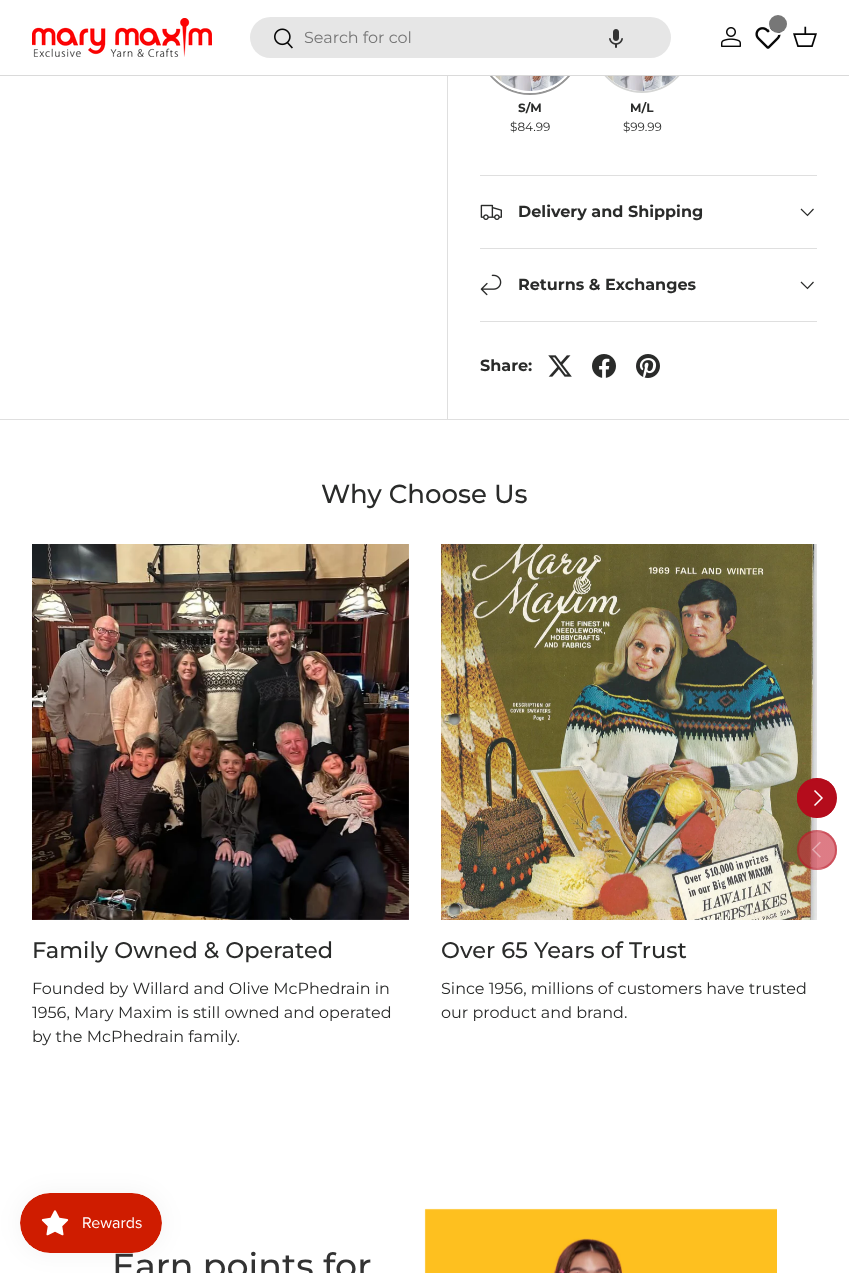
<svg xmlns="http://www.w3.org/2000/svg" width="849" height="1273">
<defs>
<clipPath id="clip1"><rect x="797" y="778" width="40" height="40" rx="20"/></clipPath>
<linearGradient id="g1" gradientUnits="userSpaceOnUse" x1="726" y1="784" x2="836" y2="812"><stop offset="0.6" stop-color="#cb3342"/><stop offset="0.6" stop-color="#b40c1c"/><stop offset="1" stop-color="#b40c1c"/></linearGradient>
<clipPath id="clip2"><rect x="797" y="830" width="40" height="40" rx="20"/></clipPath>
<linearGradient id="g2" gradientUnits="userSpaceOnUse" x1="798" y1="836" x2="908" y2="864"><stop offset="0.6" stop-color="#cb3342" stop-opacity="0.4"/><stop offset="0.6" stop-color="#b40c1c" stop-opacity="0.4"/><stop offset="1" stop-color="#b40c1c" stop-opacity="0.4"/></linearGradient>
</defs>
<rect width="100%" height="100%" fill="#fff"/>
<circle cx="530" cy="43" r="51" fill="none" stroke="#959595" stroke-width="2"/>
<circle cx="530" cy="43" r="49" fill="none" stroke="#fff" stroke-width="2"/>
<circle cx="642" cy="43" r="49" fill="none" stroke="#d4d5d4" stroke-width="2"/>
<circle cx="642" cy="43" r="48" fill="#fff"/>
<rect x="478" width="214" height="75" fill="#fff"/>
<rect y="75" width="849" height="1" fill="#dadada"/>
<image x="32" y="18" width="180" height="39" href="media/1.png"/>
<rect x="250" y="17" width="421" height="41" rx="20.5" fill="#e6e6e6"/>
<image x="274" y="28" width="19" height="21" href="media/2.png"/>
<text x="304" y="43" style="font-family:Montserrat;font-size:16px;fill:#777">Search for col</text>
<image x="609" y="29" width="14" height="19" href="media/3.png"/>
<image x="721" y="27" width="20" height="20" href="media/4.png"/>
<image x="755" y="27" width="26" height="22" href="media/5.png"/>
<circle cx="778" cy="24" r="10" fill="none" stroke="#fff" stroke-width="2"/>
<circle cx="778" cy="24" r="9" fill="#777"/>
<image x="793" y="26" width="24" height="21" href="media/6.png"/>
<rect y="419" width="849" height="1" fill="#dfdfdf"/>
<rect x="447" y="76" width="1" height="344" fill="#dfdfdf"/>
<image x="495" y="76" width="70" height="15" href="media/7.png"/>
<text x="518" y="112" style="font-family:Montserrat;font-size:12px;font-weight:bold;fill:#2a2b2a">S/M</text>
<text x="510" y="131" style="font-family:Montserrat;font-size:12px;fill:#2a2b2a">$84.99</text>
<image x="607" y="76" width="70" height="15" href="media/8.png"/>
<text x="630" y="112" style="font-family:Montserrat;font-size:12px;font-weight:bold;fill:#2a2b2a">M/L</text>
<text x="623" y="131" style="font-family:Montserrat;font-size:12px;fill:#2a2b2a">$99.99</text>
<rect x="480" y="175" width="337" height="1" fill="#dfdfdf"/>
<rect x="480" y="248" width="337" height="1" fill="#dfdfdf"/>
<image x="480" y="204" width="22" height="16" href="media/9.png"/>
<text x="518" y="217" style="font-family:Montserrat;font-size:16px;font-weight:bold;fill:#2a2b2a">Delivery and Shipping</text>
<path d="M813.5 209l-6 6.5l-6.5-6.5" fill="none" stroke="#2a2b2a" stroke-width="1.2"/>
<rect x="480" y="321" width="337" height="1" fill="#dfdfdf"/>
<image x="480" y="274" width="22" height="22" href="media/10.png"/>
<text x="518" y="290" style="font-family:Montserrat;font-size:16px;font-weight:bold;fill:#2a2b2a">Returns &amp; Exchanges</text>
<path d="M813.5 282l-6 6.5l-6.5-6.5" fill="none" stroke="#2a2b2a" stroke-width="1.2"/>
<text x="480" y="371" style="font-family:Montserrat;font-size:16px;font-weight:bold;fill:#2a2b2a">Share:</text>
<image x="548" y="355" width="24" height="22" href="media/11.png"/>
<image x="592" y="354" width="24" height="24" href="media/12.png"/>
<image x="636" y="354" width="24" height="24" href="media/13.png"/>
<text x="321" y="503" style="font-family:Montserrat;font-size:26px;font-weight:500;fill:#2a2b2a">Why Choose Us</text>
<image x="441" y="544" width="376" height="376" href="media/16.png"/>
<g clip-path="url(#clip1)">
<rect x="797" y="780" width="38" height="36" fill="url(#g1)"/>
</g>
<circle cx="817" cy="798" r="19" fill="none" stroke="#b40c1c" stroke-width="2"/>
<path d="M814.5 790.5l7.5 7.5l-7.5 7.5" fill="none" stroke="#fff" stroke-width="1.5"/>
<circle cx="817" cy="850" r="20" fill="#cb334266"/>
<g clip-path="url(#clip2)">
<rect x="799" y="832" width="38" height="36" fill="url(#g2)"/>
</g>
<circle cx="817" cy="850" r="19" fill="none" stroke="#b40c1c66" stroke-width="2"/>
<image x="812" y="841" width="9" height="17" href="media/14.png"/>
<image x="32" y="544" width="377" height="376" href="media/15.png"/>
<text x="32" y="958" style="font-family:Montserrat;font-size:22.5px;font-weight:500;fill:#2a2b2a">Family Owned &amp; Operated</text>
<text x="32" y="994" style="font-family:Montserrat;font-size:16px;fill:#2a2b2a">Founded by Willard and Olive McPhedrain in</text>
<text x="32" y="1018" style="font-family:Montserrat;font-size:16px;fill:#2a2b2a">1956, Mary Maxim is still owned and operated</text>
<text x="32" y="1042" style="font-family:Montserrat;font-size:16px;fill:#2a2b2a">by the McPhedrain family.</text>
<text x="441" y="958" style="font-family:Montserrat;font-size:22.5px;font-weight:500;fill:#2a2b2a">Over 65 Years of Trust</text>
<text x="441" y="994" style="font-family:Montserrat;font-size:16px;fill:#2a2b2a">Since 1956, millions of customers have trusted</text>
<text x="441" y="1018" style="font-family:Montserrat;font-size:16px;fill:#2a2b2a">our product and brand.</text>
<text x="112" y="1278" style="font-family:Montserrat;font-size:34.75px;font-weight:500;fill:#333">Earn points for</text>
<image x="424" y="1208" width="353" height="65" href="media/17.png"/>
<rect x="20" y="1193" width="142" height="60" rx="30" fill="#0000000d" filter="blur(12.5px)"/>
<image x="20" y="1193" width="142" height="60" href="media/18.png"/>
</svg>
